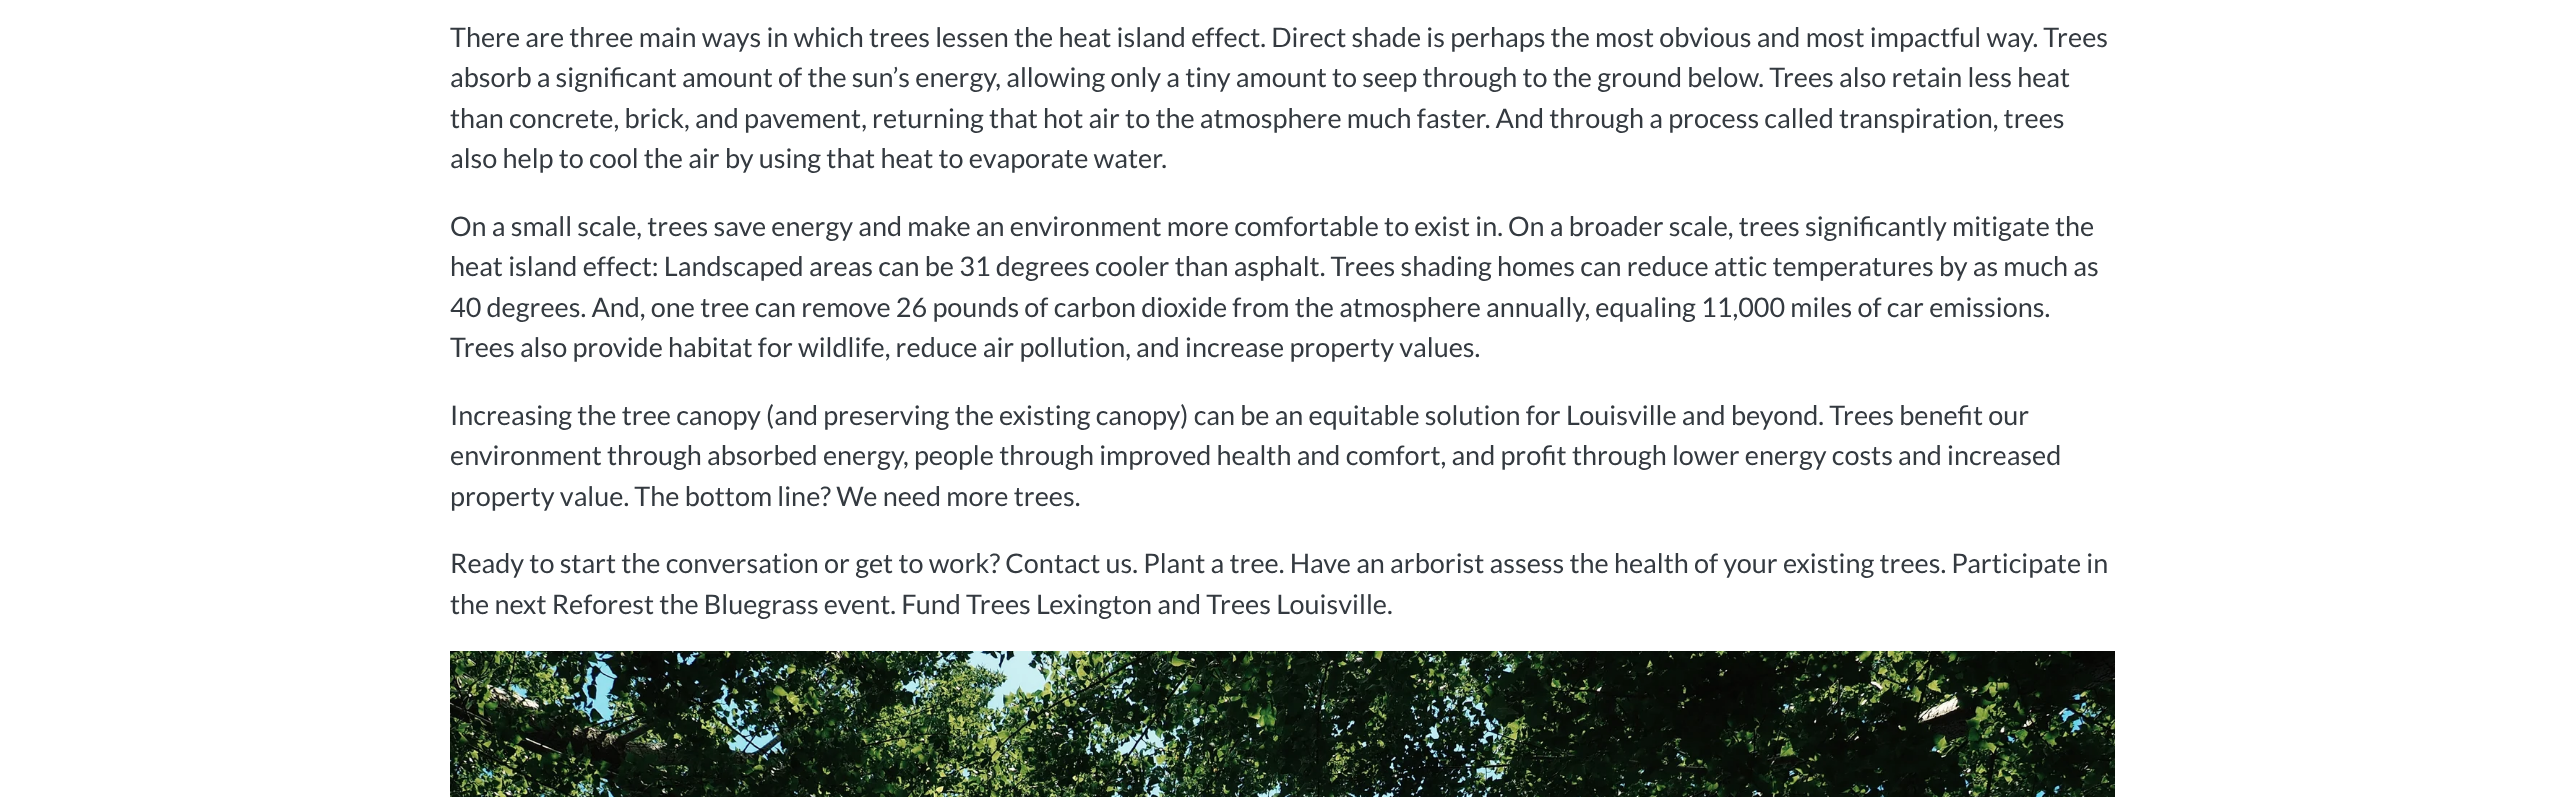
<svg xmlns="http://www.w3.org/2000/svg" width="2565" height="797">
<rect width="100%" height="100%" fill="#fff"/>
<text x="450" y="47" style="font-family:Lato;font-size:27px;fill:#343a40">There are three main ways in which trees lessen the heat island effect. Direct shade is perhaps the most obvious and most impactful way. Trees</text>
<text x="450" y="87" style="font-family:Lato;font-size:27px;fill:#343a40">absorb a significant amount of the sun’s energy, allowing only a tiny amount to seep through to the ground below. Trees also retain less heat</text>
<text x="450" y="128" style="font-family:Lato;font-size:27px;fill:#343a40">than concrete, brick, and pavement, returning that hot air to the atmosphere much faster. And through a process called transpiration, trees</text>
<text x="450" y="168" style="font-family:Lato;font-size:27px;fill:#343a40">also help to cool the air by using that heat to evaporate water.</text>
<text x="450" y="236" style="font-family:Lato;font-size:27px;fill:#343a40">On a small scale, trees save energy and make an environment more comfortable to exist in. On a broader scale, trees significantly mitigate the</text>
<text x="450" y="276" style="font-family:Lato;font-size:27px;fill:#343a40">heat island effect: Landscaped areas can be 31 degrees cooler than asphalt. Trees shading homes can reduce attic temperatures by as much as</text>
<text x="450" y="317" style="font-family:Lato;font-size:27px;fill:#343a40">40 degrees. And, one tree can remove 26 pounds of carbon dioxide from the atmosphere annually, equaling 11,000 miles of car emissions.</text>
<text x="450" y="357" style="font-family:Lato;font-size:27px;fill:#343a40">Trees also provide habitat for wildlife, reduce air pollution, and increase property values.</text>
<text x="450" y="425" style="font-family:Lato;font-size:27px;fill:#343a40">Increasing the tree canopy (and preserving the existing canopy) can be an equitable solution for Louisville and beyond. Trees benefit our</text>
<text x="450" y="465" style="font-family:Lato;font-size:27px;fill:#343a40">environment through absorbed energy, people through improved health and comfort, and profit through lower energy costs and increased</text>
<text x="450" y="506" style="font-family:Lato;font-size:27px;fill:#343a40">property value. The bottom line? We need more trees.</text>
<text x="450" y="573" style="font-family:Lato;font-size:27px;fill:#343a40">Ready to start the conversation or get to work? Contact us. Plant a tree. Have an arborist assess the health of your existing trees. Participate in</text>
<text x="450" y="614" style="font-family:Lato;font-size:27px;fill:#343a40">the next Reforest the Bluegrass event. Fund Trees Lexington and Trees Louisville.</text>
<image x="450" y="651" width="1665" height="146" href="media/1.png"/>
</svg>
